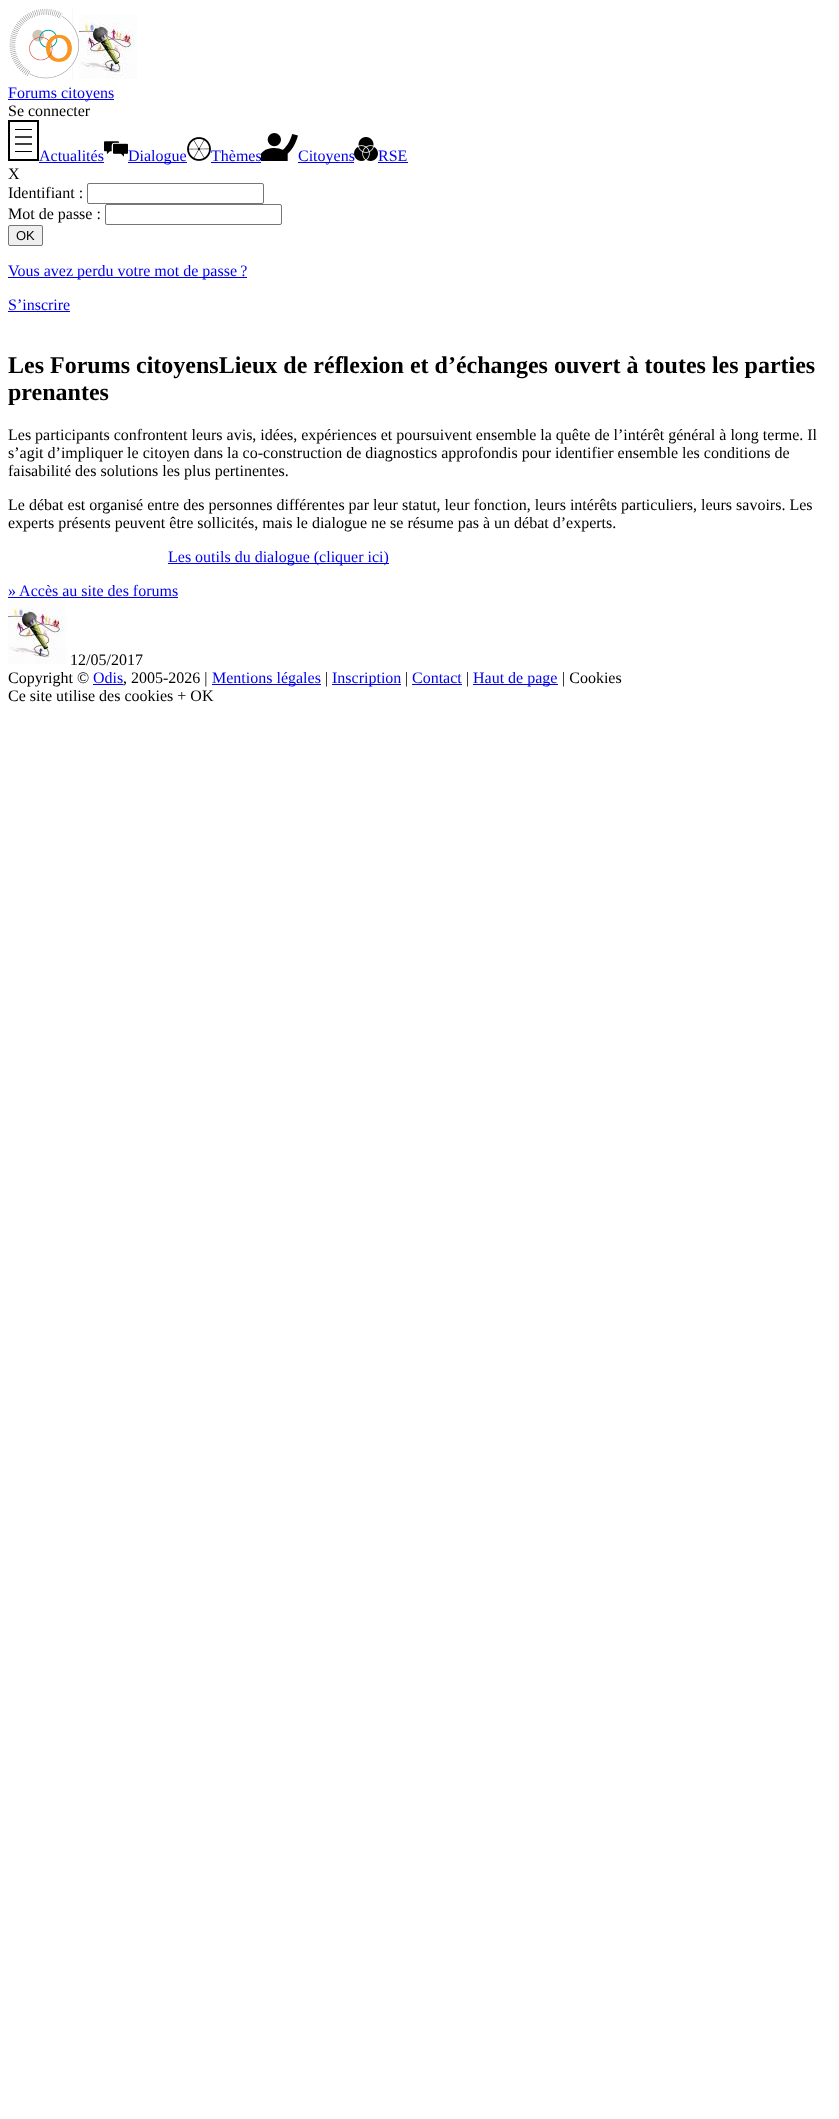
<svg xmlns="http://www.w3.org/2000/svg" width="839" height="2119">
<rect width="100%" height="100%" fill="#fff"/>
<image x="9" y="8" width="70" height="72" href="media/1.png"/>
<image x="79" y="15" width="58" height="64" href="media/2.png"/>
<rect x="8" y="99" width="106" height="1" fill="#00e"/>
<text x="8" y="98" style="font-family:Liberation Serif;font-size:16px;fill:#00e">Forums citoyens</text>
<text x="8" y="116" style="font-family:Liberation Serif;font-size:16px;fill:#000">Se connecter</text>
<text x="39" y="161" style="font-family:Liberation Serif;font-size:16px;fill:#00e">Actualités</text>
<rect x="9" y="121" width="29" height="39" fill="none" stroke="#000" stroke-width="2"/>
<path d="M15 137h17m-17 7h17" fill="none" stroke="#000" stroke-width="1.4"/>
<rect x="15" y="151" width="17" height="1" fill="#000"/>
<rect x="15" y="129" width="17" height="1" fill="#000"/>
<rect x="39" y="162" width="65" height="1" fill="#00e"/>
<image x="104" y="141" width="24" height="16" href="media/3.png"/>
<rect x="128" y="162" width="59" height="1" fill="#00e"/>
<text x="128" y="161" style="font-family:Liberation Serif;font-size:16px;fill:#00e">Dialogue</text>
<image x="187" y="137" width="24" height="24" href="media/4.png"/>
<text x="211" y="161" style="font-family:Liberation Serif;font-size:16px;fill:#00e">Thèmes</text>
<rect x="211" y="162" width="50" height="1" fill="#00e"/>
<image x="261" y="133" width="37" height="28" href="media/5.png"/>
<rect x="298" y="162" width="56" height="1" fill="#00e"/>
<text x="298" y="161" style="font-family:Liberation Serif;font-size:16px;fill:#00e">Citoyens</text>
<image x="354" y="137" width="24" height="24" href="media/6.png"/>
<text x="378" y="161" style="font-family:Liberation Serif;font-size:16px;fill:#00e">RSE</text>
<rect x="378" y="162" width="30" height="1" fill="#00e"/>
<text x="8" y="179" style="font-family:Liberation Serif;font-size:16px;fill:#000">X</text>
<text x="8" y="198" style="font-family:Liberation Serif;font-size:16px;fill:#000">Identifiant :</text>
<rect x="87.5" y="183.5" width="176" height="20" rx="1.5" fill="none" stroke="#767676"/>
<text x="8" y="219" style="font-family:Liberation Serif;font-size:16px;fill:#000">Mot de passe :</text>
<rect x="105.5" y="204.5" width="176" height="20" rx="1.5" fill="none" stroke="#767676"/>
<rect x="8.5" y="225.5" width="34" height="20" rx="1.5" fill="#efefef" stroke="#767676"/>
<text x="16" y="240" style="font-family:Liberation Sans;font-size:13px;fill:#000">OK</text>
<rect x="8" y="277" width="239" height="1" fill="#00e"/>
<text x="8" y="276" style="font-family:Liberation Serif;font-size:16px;fill:#00e">Vous avez perdu votre mot de passe ?</text>
<text x="8" y="310" style="font-family:Liberation Serif;font-size:16px;fill:#00e">S’inscrire</text>
<rect x="8" y="311" width="62" height="1" fill="#00e"/>
<text x="8" y="373" style="font-family:Liberation Serif;font-size:24px;font-weight:bold;fill:#000">Les Forums citoyensLieux de réflexion et d’échanges ouvert à toutes les parties</text>
<text x="8" y="400" style="font-family:Liberation Serif;font-size:24px;font-weight:bold;fill:#000">prenantes</text>
<text x="8" y="440" style="font-family:Liberation Serif;font-size:16px;fill:#000">Les participants confrontent leurs avis, idées, expériences et poursuivent ensemble la quête de l’intérêt général à long terme. Il</text>
<text x="8" y="458" style="font-family:Liberation Serif;font-size:16px;fill:#000">s’agit d’impliquer le citoyen dans la co-construction de diagnostics approfondis pour identifier ensemble les conditions de</text>
<text x="8" y="476" style="font-family:Liberation Serif;font-size:16px;fill:#000">faisabilité des solutions les plus pertinentes.</text>
<text x="8" y="510" style="font-family:Liberation Serif;font-size:16px;fill:#000">Le débat est organisé entre des personnes différentes par leur statut, leur fonction, leurs intérêts particuliers, leurs savoirs. Les</text>
<text x="8" y="528" style="font-family:Liberation Serif;font-size:16px;fill:#000">experts présents peuvent être sollicités, mais le dialogue ne se résume pas à un débat d’experts.</text>
<rect x="168" y="563" width="221" height="1" fill="#00e"/>
<text x="168" y="562" style="font-family:Liberation Serif;font-size:16px;fill:#00e">Les outils du dialogue (cliquer ici)</text>
<text x="8" y="596" style="font-family:Liberation Serif;font-size:16px;fill:#00e">» Accès au site des forums</text>
<rect x="8" y="597" width="170" height="1" fill="#00e"/>
<image x="8" y="600" width="58" height="64" href="media/2.png"/>
<text x="70" y="665" style="font-family:Liberation Serif;font-size:16px;fill:#000">12/05/2017</text>
<text x="8" y="683" style="font-family:Liberation Serif;font-size:16px;fill:#000">Copyright ©</text>
<text x="93" y="683" style="font-family:Liberation Serif;font-size:16px;fill:#00e">Odis</text>
<path d="M93 684.5h30.5" fill="none" stroke="#00e" stroke-dasharray="1 1"/>
<rect x="93" y="684" width="30" height="1" fill="#00e"/>
<text x="123" y="683" style="font-family:Liberation Serif;font-size:16px;fill:#000">, 2005-2026 |</text>
<rect x="212" y="684" width="109" height="1" fill="#00e"/>
<text x="212" y="683" style="font-family:Liberation Serif;font-size:16px;fill:#00e">Mentions légales</text>
<text x="325" y="683" style="font-family:Liberation Serif;font-size:16px;fill:#000">|</text>
<rect x="332" y="684" width="69" height="1" fill="#00e"/>
<text x="332" y="683" style="font-family:Liberation Serif;font-size:16px;fill:#00e">Inscription</text>
<text x="405" y="683" style="font-family:Liberation Serif;font-size:16px;fill:#000">|</text>
<text x="412" y="683" style="font-family:Liberation Serif;font-size:16px;fill:#00e">Contact</text>
<rect x="412" y="684" width="50" height="1" fill="#00e"/>
<text x="466" y="683" style="font-family:Liberation Serif;font-size:16px;fill:#000">|</text>
<rect x="473" y="684" width="85" height="1" fill="#00e"/>
<text x="473" y="683" style="font-family:Liberation Serif;font-size:16px;fill:#00e">Haut de page</text>
<text x="562" y="683" style="font-family:Liberation Serif;font-size:16px;fill:#000">| Cookies</text>
<text x="8" y="701" style="font-family:Liberation Serif;font-size:16px;fill:#000">Ce site utilise des cookies + OK</text>
</svg>
